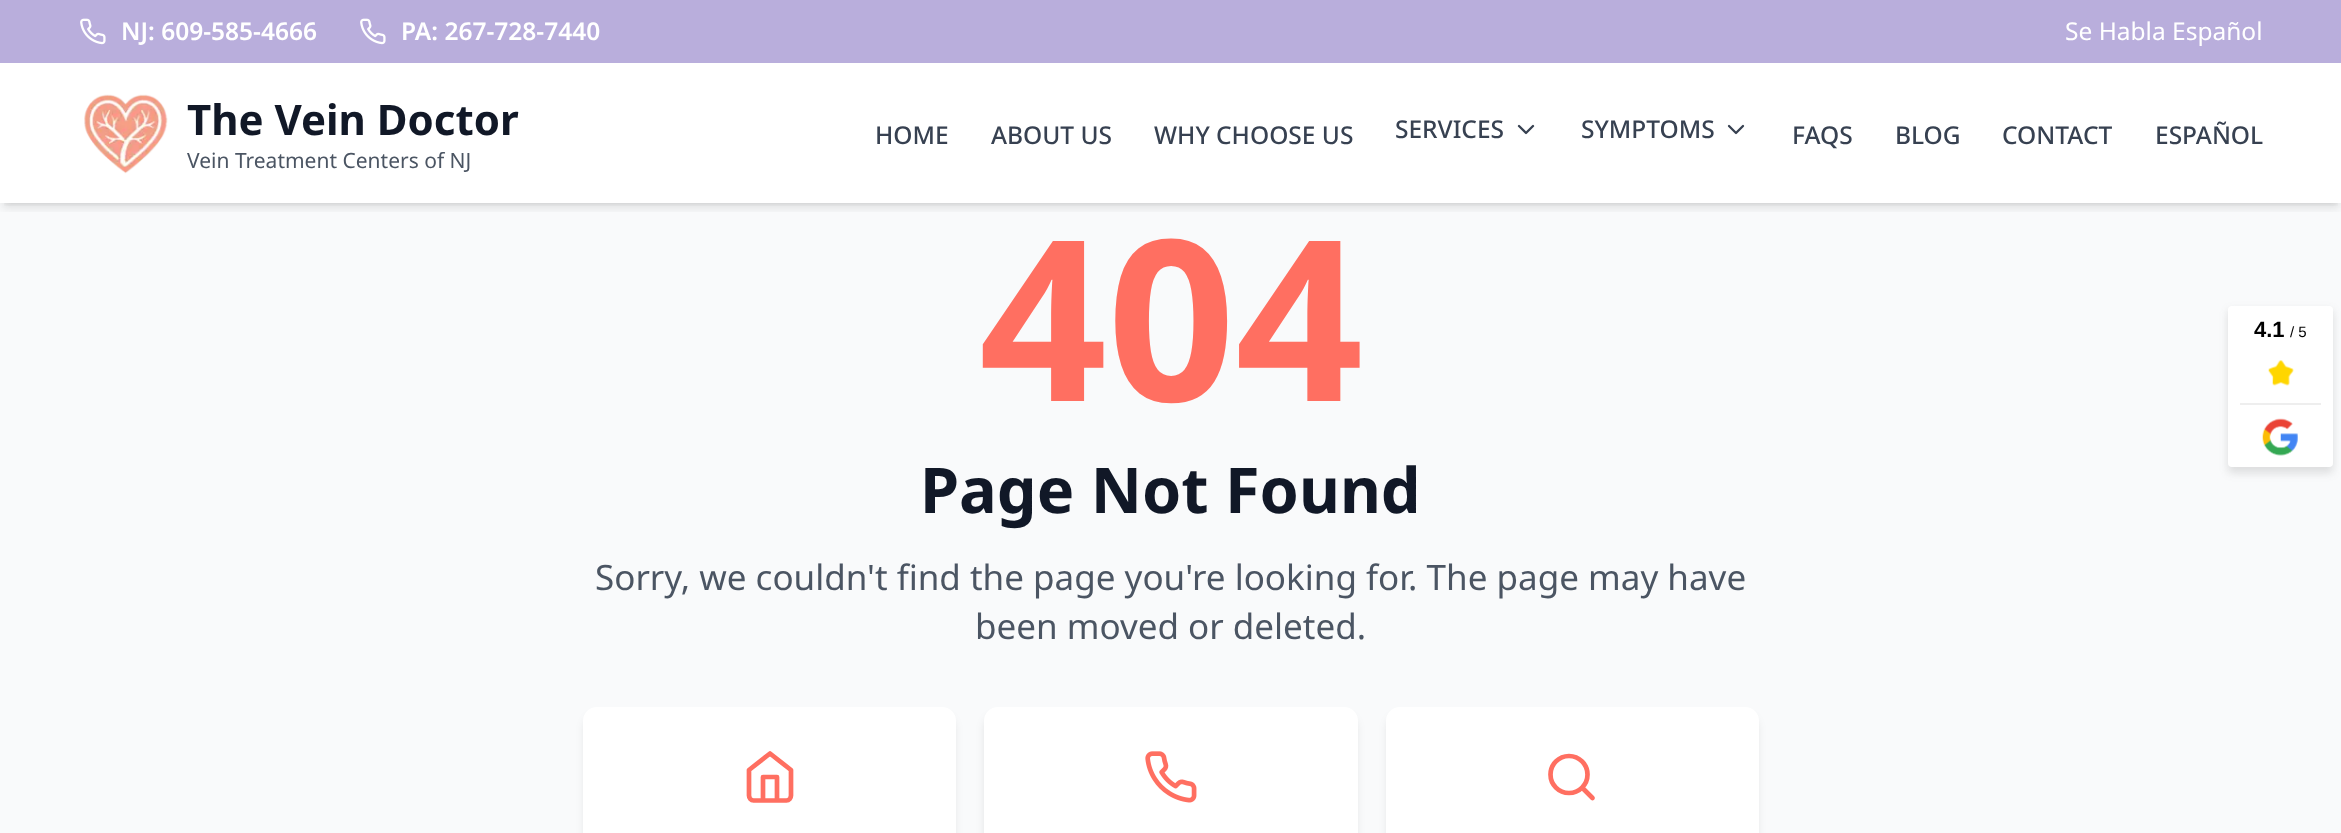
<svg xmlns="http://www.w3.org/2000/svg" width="2341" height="833">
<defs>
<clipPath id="clip1"><rect x="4" y="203" width="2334" height="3"/></clipPath>
<clipPath id="clip2"><rect x="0" y="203" width="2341" height="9"/></clipPath>
</defs>
<rect width="100%" height="100%" fill="#fff"/>
<rect y="203" width="2341" height="630" fill="#f9fafb"/>
<g clip-path="url(#clip1)">
<rect x="4" y="7" width="2334" height="196" fill="#0000001a" filter="blur(3.5px)"/>
</g>
<g clip-path="url(#clip2)">
<rect x="2" y="9" width="2338" height="199" fill="#0000001a" filter="blur(5px)"/>
</g>
<rect width="2341" height="63" fill="#b9aedc"/>
<image x="80" y="18" width="26" height="27" href="media/1.png"/>
<text x="121" y="40" style="font-family:Noto Sans;font-size:24.5px;font-weight:600;fill:#fff">NJ: 609-585-4666</text>
<image x="360" y="18" width="26" height="27" href="media/1.png"/>
<text x="401" y="40" style="font-family:Noto Sans;font-size:24.5px;font-weight:600;fill:#fff">PA: 267-728-7440</text>
<text x="2065" y="40" style="font-family:Noto Sans;font-size:24.5px;fill:#fff">Se Habla Español</text>
<image x="84" y="94" width="84" height="80" href="media/2.png"/>
<text x="187" y="135" style="font-family:Noto Sans;font-size:42px;font-weight:bold;fill:#111827">The Vein Doctor</text>
<text x="187" y="168" style="font-family:Noto Sans;font-size:21px;fill:#4b5563">Vein Treatment Centers of NJ</text>
<text x="875" y="144" style="font-family:Noto Sans;font-size:24.5px;font-weight:500;fill:#374151">HOME</text>
<text x="991" y="144" style="font-family:Noto Sans;font-size:24.5px;font-weight:500;fill:#374151">ABOUT US</text>
<text x="1154" y="144" style="font-family:Noto Sans;font-size:24.5px;font-weight:500;fill:#374151">WHY CHOOSE US</text>
<text x="1395" y="138" style="font-family:Noto Sans;font-size:24.5px;font-weight:500;fill:#374151">SERVICES</text>
<path d="M1519 126l7 7l7-7" fill="none" stroke="#374151" stroke-width="2.3" stroke-linecap="round" stroke-linejoin="round"/>
<text x="1581" y="138" style="font-family:Noto Sans;font-size:24.5px;font-weight:500;fill:#374151">SYMPTOMS</text>
<path d="M1729 126l7 7l7-7" fill="none" stroke="#374151" stroke-width="2.3" stroke-linecap="round" stroke-linejoin="round"/>
<text x="1792" y="144" style="font-family:Noto Sans;font-size:24.5px;font-weight:500;fill:#374151">FAQS</text>
<text x="1895" y="144" style="font-family:Noto Sans;font-size:24.5px;font-weight:500;fill:#374151">BLOG</text>
<text x="2002" y="144" style="font-family:Noto Sans;font-size:24.5px;font-weight:500;fill:#374151">CONTACT</text>
<text x="2155" y="144" style="font-family:Noto Sans;font-size:24.5px;font-weight:500;fill:#374151">ESPAÑOL</text>
<text x="979" y="401" style="font-family:Noto Sans;font-size:224px;font-weight:bold;fill:#ff6f61">404</text>
<text x="920" y="513" style="font-family:Noto Sans;font-size:63px;font-weight:bold;fill:#111827">Page Not Found</text>
<text x="595" y="590" style="font-family:Noto Sans;font-size:35px;fill:#4b5563">Sorry, we couldn't find the page you're looking for. The page may have</text>
<text x="975" y="639" style="font-family:Noto Sans;font-size:35px;fill:#4b5563">been moved or deleted.</text>
<rect x="585" y="716" width="369" height="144" rx="12" fill="#0000001a" filter="blur(5px)"/>
<rect x="583" y="707" width="373" height="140" rx="14" fill="#fff"/>
<path d="M749 770l21-16.5l21 16.5v25.5c0 2.5-2 5-4.5 5h-33c-2.5 0-4.5-2.5-4.5-5zm14 30.5v-23.5h14v23.5" fill="none" stroke="#ff6f61" stroke-width="4.7" stroke-linecap="round" stroke-linejoin="round"/>
<rect x="985" y="716" width="371" height="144" rx="12" fill="#0000001a" filter="blur(5px)"/>
<rect x="984" y="707" width="374" height="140" rx="14" fill="#fff"/>
<image x="1145" y="751" width="52" height="52" href="media/3.png"/>
<rect x="1388" y="716" width="369" height="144" rx="12" fill="#0000001a" filter="blur(5px)"/>
<rect x="1386" y="707" width="373" height="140" rx="14" fill="#fff"/>
<circle cx="1569" cy="774.5" r="18.5" fill="none" stroke="#ff6f61" stroke-width="4.7"/>
<path d="M1592.5 798l-10-10" fill="none" stroke="#ff6f61" stroke-width="4.7" stroke-linecap="round" stroke-linejoin="round"/>
<rect x="2228" y="310" width="105" height="163" rx="4" fill="#48484829" filter="blur(4px)"/>
<rect x="2228" y="306" width="105" height="161" rx="4" fill="#fff"/>
<text x="2254" y="337" style="font-family:Liberation Sans;font-size:22px;font-weight:bold;fill:#000">4.1</text>
<text x="2290" y="337" style="font-family:Liberation Sans;font-size:15px;fill:#000">/ 5</text>
<image x="2268" y="360" width="26" height="26" href="media/4.png"/>
<rect x="2240" y="403" width="81" height="2" fill="#eee"/>
<image x="2262" y="418" width="36" height="38" href="media/5.png"/>
</svg>
